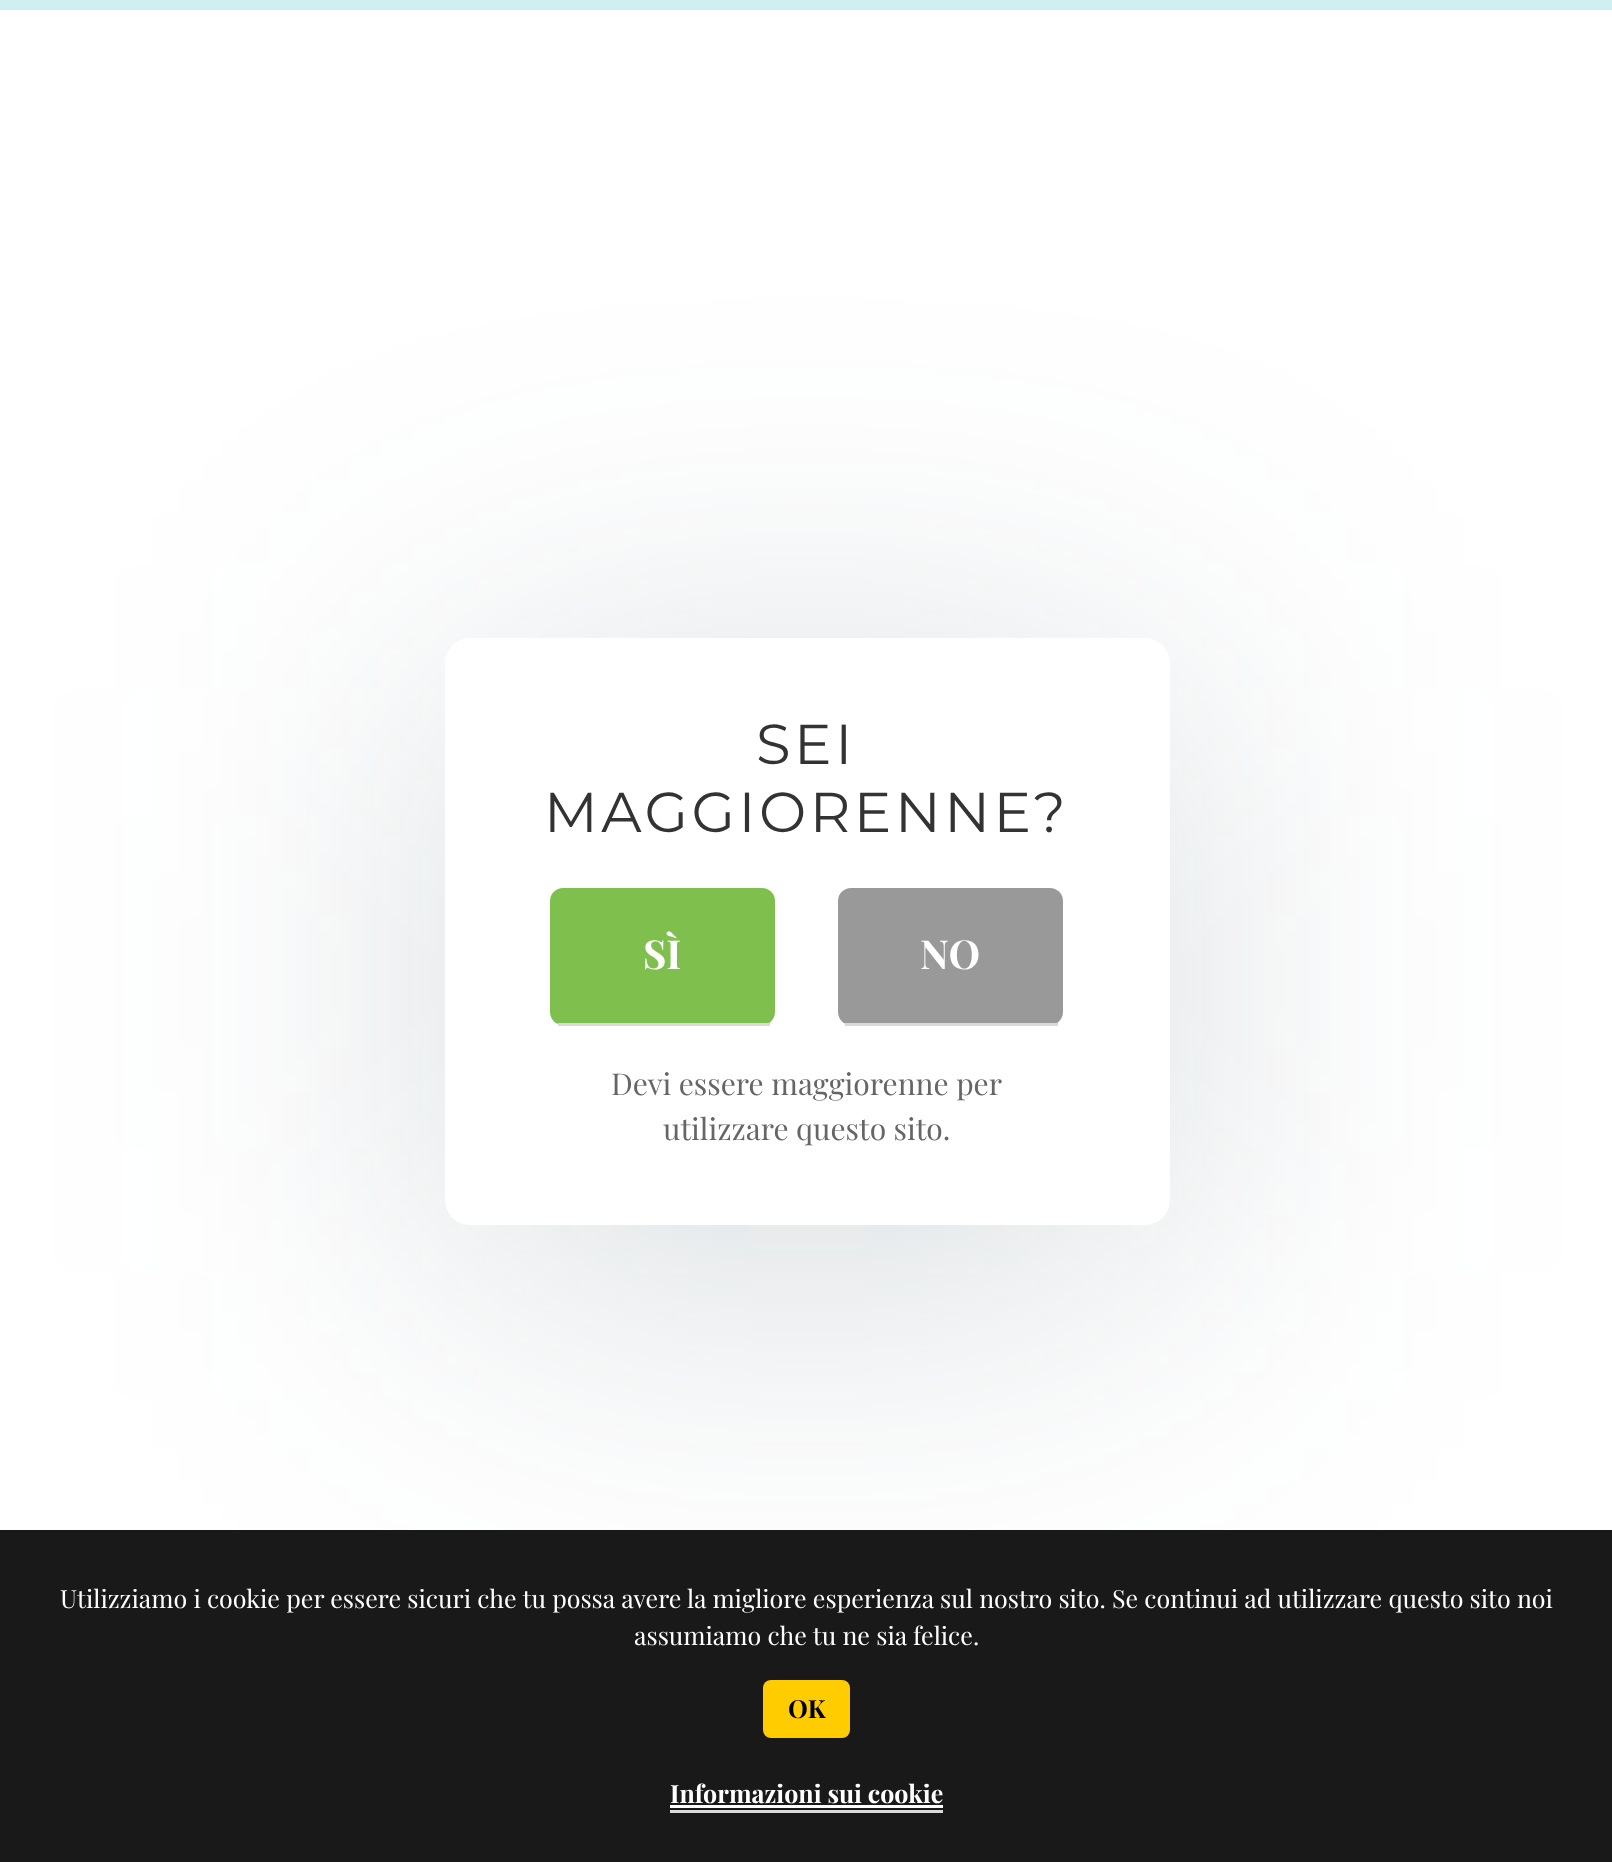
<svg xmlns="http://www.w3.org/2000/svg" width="1612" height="1862">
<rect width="100%" height="100%" fill="#fff"/>
<rect width="1612" height="10" fill="#cfeff1"/>
<rect x="445" y="688" width="725" height="587" rx="25" fill="#33495a33" filter="blur(187.5px)"/>
<rect x="445" y="638" width="725" height="587" rx="25" fill="#fff"/>
<text x="756" y="764" style="font-family:Montserrat;font-size:56.25px;font-weight:100;letter-spacing:3.5px;fill:#333">SEI</text>
<text x="544" y="832" style="font-family:Montserrat;font-size:56.25px;font-weight:100;letter-spacing:3.5px;fill:#333">MAGGIORENNE?</text>
<rect x="550" y="888" width="225" height="137" rx="13" fill="#7fbf4d"/>
<rect x="558" y="1023" width="212" height="3" fill="#d9d9d9"/>
<text x="643" y="969" style="font-family:Playfair Display;font-size:40px;font-weight:bold;fill:#fff">SÌ</text>
<rect x="838" y="888" width="225" height="137" rx="13" fill="#999"/>
<rect x="845" y="1023" width="213" height="3" fill="#d9d9d9"/>
<text x="920" y="969" style="font-family:Playfair Display;font-size:40px;font-weight:bold;fill:#fff">NO</text>
<text x="611" y="1095" style="font-family:Playfair Display;font-size:30px;fill:#666">Devi essere maggiorenne per</text>
<text x="663" y="1140" style="font-family:Playfair Display;font-size:30px;fill:#666">utilizzare questo sito.</text>
<rect y="1530" width="1612" height="332" fill="#000000e6"/>
<text x="60" y="1608" style="font-family:Playfair Display;font-size:25px;fill:#fff">Utilizziamo i cookie per essere sicuri che tu possa avere la migliore esperienza sul nostro sito. Se continui ad utilizzare questo sito noi</text>
<text x="634" y="1645" style="font-family:Playfair Display;font-size:25px;fill:#fff">assumiamo che tu ne sia felice.</text>
<rect x="763" y="1680" width="87" height="58" rx="8" fill="#fc0"/>
<text x="788" y="1718" style="font-family:Playfair Display;font-size:25px;font-weight:bold;fill:#000">OK</text>
<text x="670" y="1803" style="font-family:Playfair Display;font-size:25px;font-weight:bold;fill:#fff">Informazioni sui cookie</text>
<rect x="670" y="1810" width="273" height="3" fill="#d9d9d9"/>
<rect x="670" y="1805" width="273" height="3" fill="#fff"/>
</svg>
